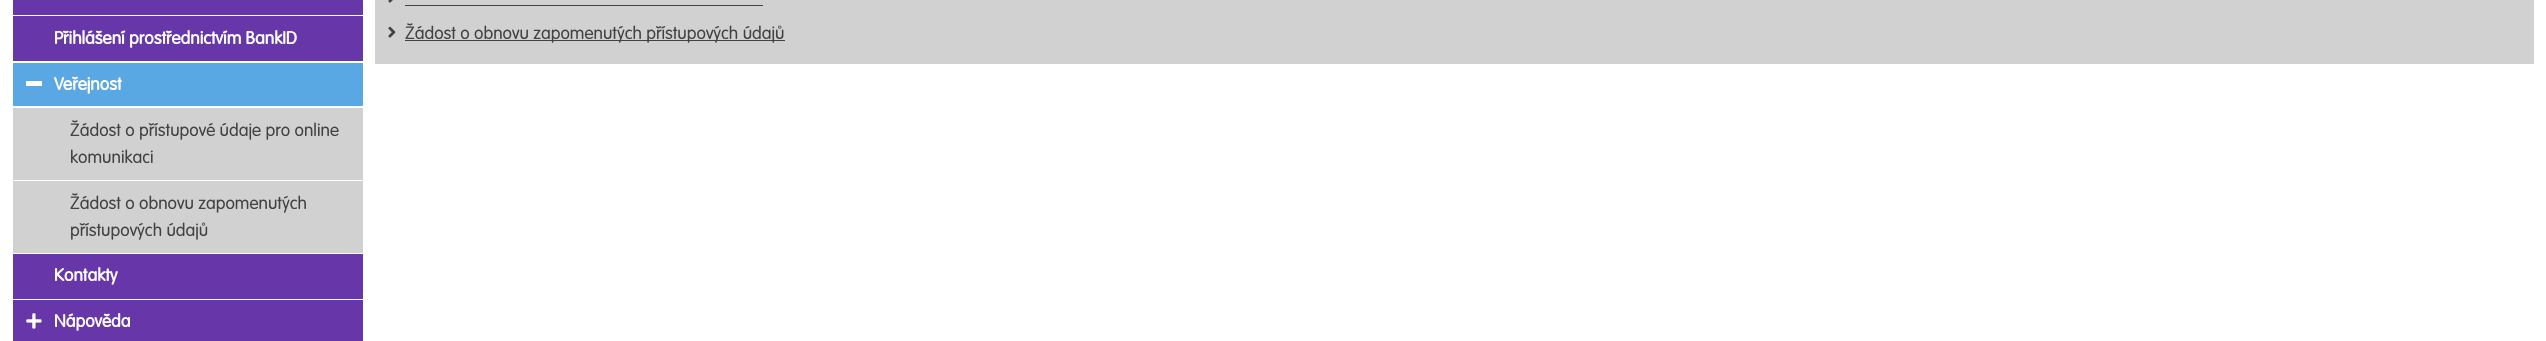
<svg xmlns="http://www.w3.org/2000/svg" width="2546" height="341">
<rect width="100%" height="100%" fill="#fff"/>
<rect x="13" width="350" height="15" fill="#6736a9"/>
<rect x="13" y="16" width="350" height="45" fill="#6736a9"/>
<text x="54" y="44" style="font-family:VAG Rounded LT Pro;font-size:17.5px;font-weight:bold;fill:#fff">Přihlášení prostřednictvím BankID</text>
<rect x="13" y="63" width="350" height="43" fill="#59a8e3"/>
<rect x="26" y="81" width="16" height="5" fill="#fff"/>
<text x="54" y="90" style="font-family:VAG Rounded LT Pro;font-size:17.5px;font-weight:bold;fill:#fff">Veřejnost</text>
<rect x="13" y="108" width="350" height="72" fill="#d1d1d1"/>
<text x="70" y="136" style="font-family:VAG Rounded LT Pro;font-size:17.5px;font-weight:300;fill:#424242">Žádost o přístupové údaje pro online</text>
<text x="70" y="163" style="font-family:VAG Rounded LT Pro;font-size:17.5px;font-weight:300;fill:#424242">komunikaci</text>
<rect x="13" y="181" width="350" height="72" fill="#d1d1d1"/>
<text x="70" y="209" style="font-family:VAG Rounded LT Pro;font-size:17.5px;font-weight:300;fill:#424242">Žádost o obnovu zapomenutých</text>
<text x="70" y="236" style="font-family:VAG Rounded LT Pro;font-size:17.5px;font-weight:300;fill:#424242">přístupových údajů</text>
<rect x="13" y="254" width="350" height="45" fill="#6736a9"/>
<text x="54" y="281" style="font-family:VAG Rounded LT Pro;font-size:17.5px;font-weight:bold;fill:#fff">Kontakty</text>
<rect x="13" y="300" width="350" height="41" fill="#6736a9"/>
<image x="26" y="313" width="16" height="16" href="media/1.png"/>
<text x="54" y="327" style="font-family:VAG Rounded LT Pro;font-size:17.5px;font-weight:bold;fill:#fff">Nápověda</text>
<rect x="375" width="2159" height="64" fill="#d1d1d1"/>
<image x="388" y="0" width="5" height="3" href="media/2.png"/>
<rect x="405" y="5" width="358" height="1" fill="#424242"/>
<image x="388" y="26" width="8" height="12" href="media/3.png"/>
<rect x="405" y="40" width="380" height="1" fill="#424242"/>
<text x="405" y="39" style="font-family:VAG Rounded LT Pro;font-size:17.5px;font-weight:300;fill:#424242">Žádost o obnovu zapomenutých přístupových údajů</text>
</svg>
